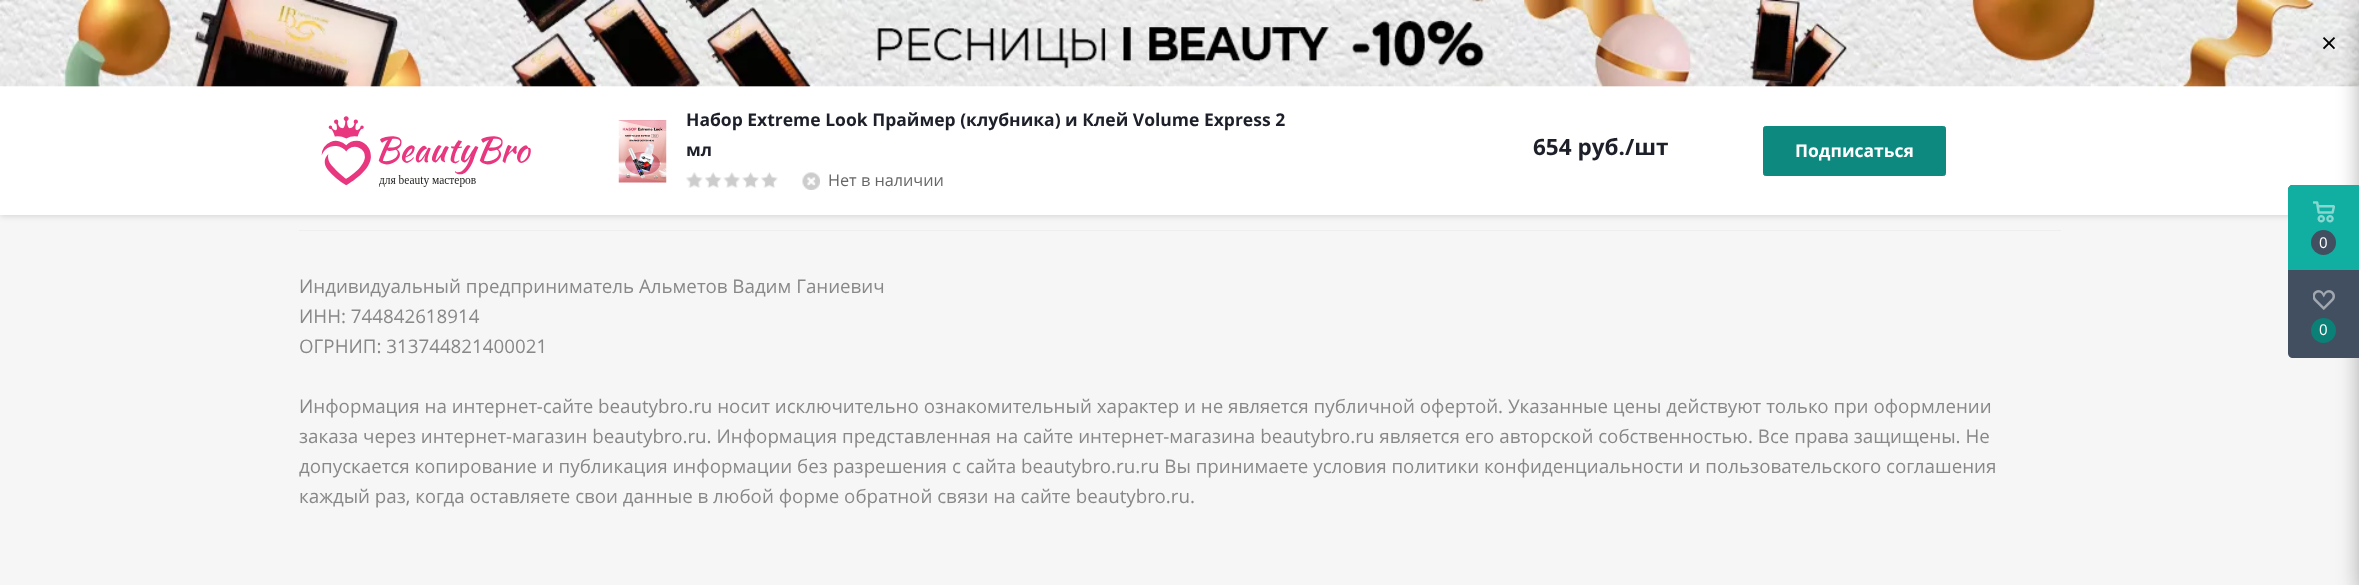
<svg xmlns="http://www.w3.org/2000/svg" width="2359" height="585">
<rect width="100%" height="100%" fill="#f6f6f7"/>
<rect y="1" width="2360" height="215" fill="#00000024" filter="blur(3px)"/>
<rect y="86" width="2359" height="129" fill="#fff"/>
<image x="0" y="0" width="2359" height="87" href="media/1.png"/>
<text x="2321" y="53" style="font-family:Open Sans;font-size:28px;fill:#000">×</text>
<image x="321" y="116" width="210" height="71" href="media/2.png"/>
<image x="618" y="120" width="49" height="63" href="media/3.png"/>
<text x="686" y="126" style="font-family:Open Sans;font-size:17.5px;font-weight:bold;fill:#1d2029">Набор Extreme Look Праймер (клубника) и Клей Volume Express 2</text>
<text x="686" y="156" style="font-family:Open Sans;font-size:17.5px;font-weight:bold;fill:#1d2029">мл</text>
<image x="686" y="172" width="17" height="16" href="media/4.png"/>
<image x="705" y="172" width="17" height="16" href="media/5.png"/>
<image x="723" y="172" width="17" height="16" href="media/6.png"/>
<image x="742" y="172" width="17" height="16" href="media/7.png"/>
<image x="761" y="172" width="17" height="16" href="media/8.png"/>
<image x="802" y="172" width="18" height="18" href="media/9.png"/>
<text x="828" y="186" style="font-family:Open Sans;font-size:16.25px;fill:#666">Нет в наличии</text>
<text x="1533" y="155" style="font-family:Open Sans;font-size:22.5px;font-weight:bold;fill:#1d2029">654 руб./шт</text>
<rect x="1763.5" y="126.5" width="182" height="49" rx="2" fill="#0d897f" stroke="#0d897f"/>
<text x="1795" y="157" style="font-family:Open Sans;font-size:17.5px;font-weight:bold;fill:#fff">Подписаться</text>
<rect x="299" y="230" width="1762" height="1" fill="#eee"/>
<text x="299" y="293" style="font-family:Open Sans;font-size:18.75px;fill:#888">Индивидуальный предприниматель Альметов Вадим Ганиевич</text>
<text x="299" y="323" style="font-family:Open Sans;font-size:18.75px;fill:#888">ИНН: 744842618914</text>
<text x="299" y="353" style="font-family:Open Sans;font-size:18.75px;fill:#888">ОГРНИП: 313744821400021</text>
<text x="299" y="413" style="font-family:Open Sans;font-size:18.75px;fill:#888">Информация на интернет-сайте beautybro.ru носит исключительно ознакомительный характер и не является публичной офертой. Указанные цены действуют только при оформлении</text>
<text x="299" y="443" style="font-family:Open Sans;font-size:18.75px;fill:#888">заказа через интернет-магазин beautybro.ru. Информация представленная на сайте интернет-магазина beautybro.ru является его авторской собственностью. Все права защищены. Не</text>
<text x="299" y="473" style="font-family:Open Sans;font-size:18.75px;fill:#888">допускается копирование и публикация информации без разрешения с сайта beautybro.ru.ru Вы принимаете условия политики конфиденциальности и пользовательского соглашения</text>
<text x="299" y="503" style="font-family:Open Sans;font-size:18.75px;fill:#888">каждый раз, когда оставляете свои данные в любой форме обратной связи на сайте beautybro.ru.</text>
<rect x="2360" y="8" width="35" height="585" rx="2.5" fill="#2c2c2c66" filter="blur(11px)"/>
<path d="M2293 185h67v173h-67c-3 0-5-2-5-5v-163c0-3 2-5 5-5z" fill="#424f60"/>
<path d="M2293 185h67v85h-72v-80c0-3 2-5 5-5z" fill="#11aea2"/>
<image x="2313" y="201" width="22" height="22" href="media/10.png"/>
<circle cx="2323.5" cy="242.5" r="12.5" fill="#424f60"/>
<text x="2319" y="248" style="font-family:Open Sans;font-size:15px;fill:#fff">0</text>
<image x="2313" y="290" width="22" height="20" href="media/11.png"/>
<circle cx="2323.5" cy="330.5" r="12.5" fill="#0b8077"/>
<text x="2319" y="335" style="font-family:Open Sans;font-size:15px;fill:#fff">0</text>
</svg>
